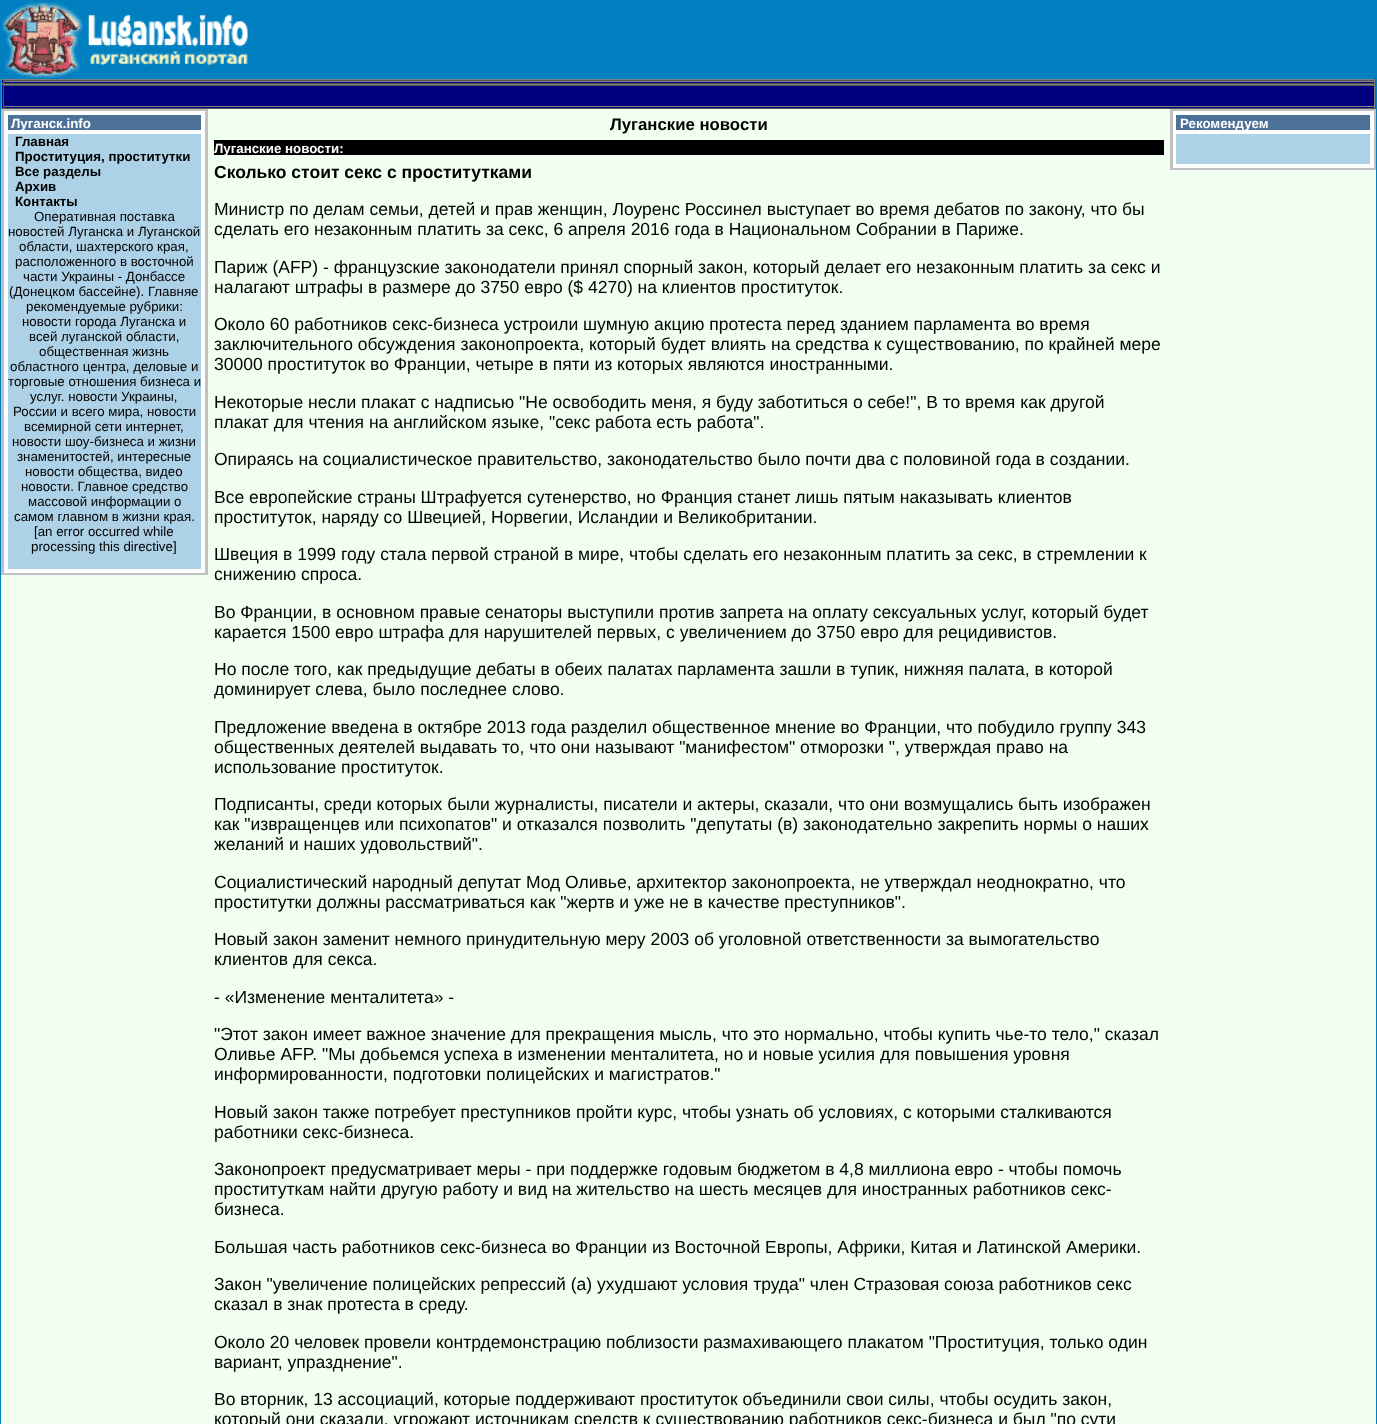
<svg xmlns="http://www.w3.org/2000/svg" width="1377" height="1424">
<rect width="100%" height="100%" fill="#0080c0"/>
<image x="2" y="2" width="246" height="76" href="media/1.png"/>
<rect x="1" y="80" width="1375" height="3" fill="#000080"/>
<rect x="1" y="79" width="1375" height="1" fill="#808080"/>
<rect x="1375" y="79" width="1" height="5" fill="#555"/>
<rect x="1" y="83" width="1375" height="1" fill="#555"/>
<rect x="1" y="79" width="1" height="5" fill="#808080"/>
<rect x="3" y="80" width="1372" height="1" fill="#555"/>
<rect x="1374" y="80" width="1" height="3" fill="#808080"/>
<rect x="3" y="81" width="1372" height="1" fill="#808080"/>
<rect x="3" y="80" width="1" height="3" fill="#555"/>
<rect x="1" y="109" width="1375" height="1315" fill="#f0fff0"/>
<rect x="2" y="85" width="1372" height="23" fill="#000080"/>
<rect x="1" y="84" width="1375" height="1" fill="#808080"/>
<rect x="1375" y="84" width="1" height="25" fill="#555"/>
<rect x="1" y="108" width="1375" height="1" fill="#555"/>
<rect x="1" y="84" width="1" height="25" fill="#808080"/>
<rect x="3" y="85" width="1372" height="1" fill="#555"/>
<rect x="1374" y="85" width="1" height="23" fill="#808080"/>
<rect x="3" y="106" width="1372" height="1" fill="#808080"/>
<rect x="3" y="85" width="1" height="23" fill="#555"/>
<text x="4" y="103" style="font-family:Liberation Sans;font-size:17.5px;fill:#000">.</text>
<rect x="1" y="109" width="207" height="466" fill="#c0c0c0"/>
<rect x="4" y="111" width="201" height="462" fill="#fff"/>
<rect x="8" y="115" width="193" height="15" fill="#4c7199"/>
<text x="11" y="128" style="font-family:Liberation Sans;font-size:13.3px;font-weight:bold;fill:#fff">Луганск.info</text>
<rect x="8" y="134" width="193" height="435" fill="#add1e6"/>
<text x="15" y="146" style="font-family:Liberation Sans;font-size:13.3px;font-weight:bold;fill:#000">Главная</text>
<text x="15" y="161" style="font-family:Liberation Sans;font-size:13.3px;font-weight:bold;fill:#000">Проституция, проститутки</text>
<text x="15" y="176" style="font-family:Liberation Sans;font-size:13.3px;font-weight:bold;fill:#000">Все разделы</text>
<text x="15" y="191" style="font-family:Liberation Sans;font-size:13.3px;font-weight:bold;fill:#000">Архив</text>
<text x="15" y="206" style="font-family:Liberation Sans;font-size:13.3px;font-weight:bold;fill:#000">Контакты</text>
<text x="34" y="221" style="font-family:Liberation Sans;font-size:13.3px;fill:#000">Оперативная поставка</text>
<text x="8" y="236" style="font-family:Liberation Sans;font-size:13.3px;fill:#000">новостей Луганска и Луганской</text>
<text x="19" y="251" style="font-family:Liberation Sans;font-size:13.3px;fill:#000">области, шахтерского края,</text>
<text x="15" y="266" style="font-family:Liberation Sans;font-size:13.3px;fill:#000">расположенного в восточной</text>
<text x="23" y="281" style="font-family:Liberation Sans;font-size:13.3px;fill:#000">части Украины - Донбассе</text>
<text x="9" y="296" style="font-family:Liberation Sans;font-size:13.3px;fill:#000">(Донецком бассейне). Главняе</text>
<text x="26" y="311" style="font-family:Liberation Sans;font-size:13.3px;fill:#000">рекомендуемые рубрики:</text>
<text x="22" y="326" style="font-family:Liberation Sans;font-size:13.3px;fill:#000">новости города Луганска и</text>
<text x="29" y="341" style="font-family:Liberation Sans;font-size:13.3px;fill:#000">всей луганской области,</text>
<text x="39" y="356" style="font-family:Liberation Sans;font-size:13.3px;fill:#000">общественная жизнь</text>
<text x="10" y="371" style="font-family:Liberation Sans;font-size:13.3px;fill:#000">областного центра, деловые и</text>
<text x="8" y="386" style="font-family:Liberation Sans;font-size:13.3px;fill:#000">торговые отношения бизнеса и</text>
<text x="30" y="401" style="font-family:Liberation Sans;font-size:13.3px;fill:#000">услуг. новости Украины,</text>
<text x="13" y="416" style="font-family:Liberation Sans;font-size:13.3px;fill:#000">России и всего мира, новости</text>
<text x="24" y="431" style="font-family:Liberation Sans;font-size:13.3px;fill:#000">всемирной сети интернет,</text>
<text x="12" y="446" style="font-family:Liberation Sans;font-size:13.3px;fill:#000">новости шоу-бизнеса и жизни</text>
<text x="17" y="461" style="font-family:Liberation Sans;font-size:13.3px;fill:#000">знаменитостей, интересные</text>
<text x="25" y="476" style="font-family:Liberation Sans;font-size:13.3px;fill:#000">новости общества, видео</text>
<text x="21" y="491" style="font-family:Liberation Sans;font-size:13.3px;fill:#000">новости. Главное средство</text>
<text x="28" y="506" style="font-family:Liberation Sans;font-size:13.3px;fill:#000">массовой информации о</text>
<text x="14" y="521" style="font-family:Liberation Sans;font-size:13.3px;fill:#000">самом главном в жизни края.</text>
<text x="34" y="536" style="font-family:Liberation Sans;font-size:13.3px;fill:#000">[an error occurred while</text>
<text x="31" y="551" style="font-family:Liberation Sans;font-size:13.3px;fill:#000">processing this directive]</text>
<text x="610" y="130" style="font-family:Liberation Sans;font-size:16.75px;font-weight:bold;fill:#000">Луганские новости</text>
<rect x="214" y="140" width="950" height="15" fill="#000"/>
<text x="214" y="153" style="font-family:Liberation Sans;font-size:13.3px;font-weight:bold;fill:#fff">Луганские новости:</text>
<text x="214" y="178" style="font-family:Liberation Sans;font-size:17.5px;font-weight:bold;fill:#000">Сколько стоит секс с проститутками</text>
<text x="214" y="215" style="font-family:Liberation Sans;font-size:17.5px;fill:#000">Министр по делам семьи, детей и прав женщин, Лоуренс Россинел выступает во время дебатов по закону, что бы</text>
<text x="214" y="235" style="font-family:Liberation Sans;font-size:17.5px;fill:#000">сделать его незаконным платить за секс, 6 апреля 2016 года в Национальном Собрании в Париже.</text>
<text x="214" y="273" style="font-family:Liberation Sans;font-size:17.5px;fill:#000">Париж (AFP) - французские законодатели принял спорный закон, который делает его незаконным платить за секс и</text>
<text x="214" y="293" style="font-family:Liberation Sans;font-size:17.5px;fill:#000">налагают штрафы в размере до 3750 евро ($ 4270) на клиентов проституток.</text>
<text x="214" y="330" style="font-family:Liberation Sans;font-size:17.5px;fill:#000">Около 60 работников секс-бизнеса устроили шумную акцию протеста перед зданием парламента во время</text>
<text x="214" y="350" style="font-family:Liberation Sans;font-size:17.5px;fill:#000">заключительного обсуждения законопроекта, который будет влиять на средства к существованию, по крайней мере</text>
<text x="214" y="370" style="font-family:Liberation Sans;font-size:17.5px;fill:#000">30000 проституток во Франции, четыре в пяти из которых являются иностранными.</text>
<text x="214" y="408" style="font-family:Liberation Sans;font-size:17.5px;fill:#000">Некоторые несли плакат с надписью "Не освободить меня, я буду заботиться о себе!", В то время как другой</text>
<text x="214" y="428" style="font-family:Liberation Sans;font-size:17.5px;fill:#000">плакат для чтения на английском языке, "секс работа есть работа".</text>
<text x="214" y="465" style="font-family:Liberation Sans;font-size:17.5px;fill:#000">Опираясь на социалистическое правительство, законодательство было почти два с половиной года в создании.</text>
<text x="214" y="503" style="font-family:Liberation Sans;font-size:17.5px;fill:#000">Все европейские страны Штрафуется сутенерство, но Франция станет лишь пятым наказывать клиентов</text>
<text x="214" y="523" style="font-family:Liberation Sans;font-size:17.5px;fill:#000">проституток, наряду со Швецией, Норвегии, Исландии и Великобритании.</text>
<text x="214" y="560" style="font-family:Liberation Sans;font-size:17.5px;fill:#000">Швеция в 1999 году стала первой страной в мире, чтобы сделать его незаконным платить за секс, в стремлении к</text>
<text x="214" y="580" style="font-family:Liberation Sans;font-size:17.5px;fill:#000">снижению спроса.</text>
<text x="214" y="618" style="font-family:Liberation Sans;font-size:17.5px;fill:#000">Во Франции, в основном правые сенаторы выступили против запрета на оплату сексуальных услуг, который будет</text>
<text x="214" y="638" style="font-family:Liberation Sans;font-size:17.5px;fill:#000">карается 1500 евро штрафа для нарушителей первых, с увеличением до 3750 евро для рецидивистов.</text>
<text x="214" y="675" style="font-family:Liberation Sans;font-size:17.5px;fill:#000">Но после того, как предыдущие дебаты в обеих палатах парламента зашли в тупик, нижняя палата, в которой</text>
<text x="214" y="695" style="font-family:Liberation Sans;font-size:17.5px;fill:#000">доминирует слева, было последнее слово.</text>
<text x="214" y="733" style="font-family:Liberation Sans;font-size:17.5px;fill:#000">Предложение введена в октябре 2013 года разделил общественное мнение во Франции, что побудило группу 343</text>
<text x="214" y="753" style="font-family:Liberation Sans;font-size:17.5px;fill:#000">общественных деятелей выдавать то, что они называют "манифестом" отморозки ", утверждая право на</text>
<text x="214" y="773" style="font-family:Liberation Sans;font-size:17.5px;fill:#000">использование проституток.</text>
<text x="214" y="810" style="font-family:Liberation Sans;font-size:17.5px;fill:#000">Подписанты, среди которых были журналисты, писатели и актеры, сказали, что они возмущались быть изображен</text>
<text x="214" y="830" style="font-family:Liberation Sans;font-size:17.5px;fill:#000">как "извращенцев или психопатов" и отказался позволить "депутаты (в) законодательно закрепить нормы о наших</text>
<text x="214" y="850" style="font-family:Liberation Sans;font-size:17.5px;fill:#000">желаний и наших удовольствий".</text>
<text x="214" y="888" style="font-family:Liberation Sans;font-size:17.5px;fill:#000">Социалистический народный депутат Мод Оливье, архитектор законопроекта, не утверждал неоднократно, что</text>
<text x="214" y="908" style="font-family:Liberation Sans;font-size:17.5px;fill:#000">проститутки должны рассматриваться как "жертв и уже не в качестве преступников".</text>
<text x="214" y="945" style="font-family:Liberation Sans;font-size:17.5px;fill:#000">Новый закон заменит немного принудительную меру 2003 об уголовной ответственности за вымогательство</text>
<text x="214" y="965" style="font-family:Liberation Sans;font-size:17.5px;fill:#000">клиентов для секса.</text>
<text x="214" y="1003" style="font-family:Liberation Sans;font-size:17.5px;fill:#000">- «Изменение менталитета» -</text>
<text x="214" y="1040" style="font-family:Liberation Sans;font-size:17.5px;fill:#000">"Этот закон имеет важное значение для прекращения мысль, что это нормально, чтобы купить чье-то тело," сказал</text>
<text x="214" y="1060" style="font-family:Liberation Sans;font-size:17.5px;fill:#000">Оливье AFP. "Мы добьемся успеха в изменении менталитета, но и новые усилия для повышения уровня</text>
<text x="214" y="1080" style="font-family:Liberation Sans;font-size:17.5px;fill:#000">информированности, подготовки полицейских и магистратов."</text>
<text x="214" y="1118" style="font-family:Liberation Sans;font-size:17.5px;fill:#000">Новый закон также потребует преступников пройти курс, чтобы узнать об условиях, с которыми сталкиваются</text>
<text x="214" y="1138" style="font-family:Liberation Sans;font-size:17.5px;fill:#000">работники секс-бизнеса.</text>
<text x="214" y="1175" style="font-family:Liberation Sans;font-size:17.5px;fill:#000">Законопроект предусматривает меры - при поддержке годовым бюджетом в 4,8 миллиона евро - чтобы помочь</text>
<text x="214" y="1195" style="font-family:Liberation Sans;font-size:17.5px;fill:#000">проституткам найти другую работу и вид на жительство на шесть месяцев для иностранных работников секс-</text>
<text x="214" y="1215" style="font-family:Liberation Sans;font-size:17.5px;fill:#000">бизнеса.</text>
<text x="214" y="1253" style="font-family:Liberation Sans;font-size:17.5px;fill:#000">Большая часть работников секс-бизнеса во Франции из Восточной Европы, Африки, Китая и Латинской Америки.</text>
<text x="214" y="1290" style="font-family:Liberation Sans;font-size:17.5px;fill:#000">Закон "увеличение полицейских репрессий (а) ухудшают условия труда" член Стразовая союза работников секс</text>
<text x="214" y="1310" style="font-family:Liberation Sans;font-size:17.5px;fill:#000">сказал в знак протеста в среду.</text>
<text x="214" y="1348" style="font-family:Liberation Sans;font-size:17.5px;fill:#000">Около 20 человек провели контрдемонстрацию поблизости размахивающего плакатом "Проституция, только один</text>
<text x="214" y="1368" style="font-family:Liberation Sans;font-size:17.5px;fill:#000">вариант, упразднение".</text>
<text x="214" y="1405" style="font-family:Liberation Sans;font-size:17.5px;fill:#000">Во вторник, 13 ассоциаций, которые поддерживают проституток объединили свои силы, чтобы осудить закон,</text>
<text x="214" y="1425" style="font-family:Liberation Sans;font-size:17.5px;fill:#000">который они сказали, угрожают источникам средств к существованию работников секс-бизнеса и был "по сути</text>
<rect x="1170" y="109" width="206" height="61" fill="#c0c0c0"/>
<rect x="1173" y="111" width="201" height="57" fill="#fff"/>
<rect x="1176" y="115" width="194" height="15" fill="#4c7199"/>
<text x="1180" y="128" style="font-family:Liberation Sans;font-size:13.3px;font-weight:bold;fill:#fff">Рекомендуем</text>
<rect x="1176" y="134" width="194" height="30" fill="#add1e6"/>
</svg>
